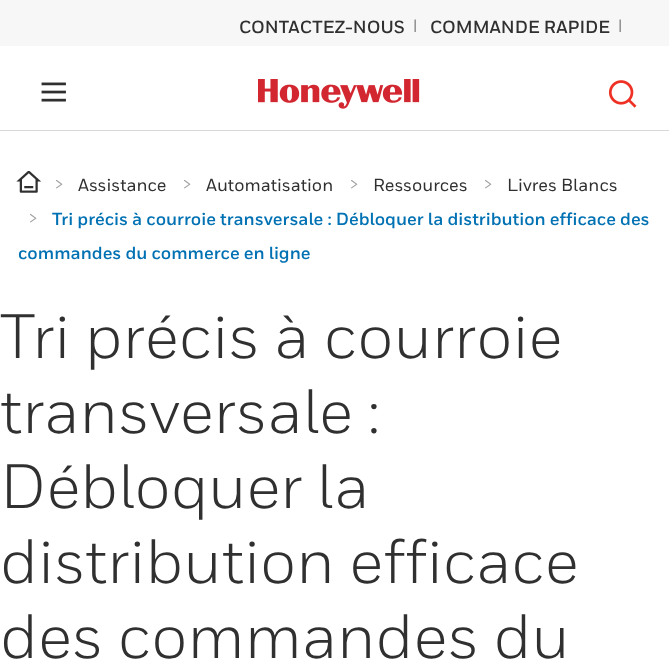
<svg xmlns="http://www.w3.org/2000/svg" width="669" height="664">
<rect width="100%" height="100%" fill="#fff"/>
<rect width="669" height="46" fill="#f7f7f7"/>
<text x="239" y="33" style="font-family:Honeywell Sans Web;font-size:17.5px;font-weight:bold;fill:#303030">CONTACTEZ-NOUS</text>
<text x="413" y="31" style="font-family:Honeywell Sans Web;font-size:15px;fill:#303030">|</text>
<text x="430" y="33" style="font-family:Honeywell Sans Web;font-size:17.5px;font-weight:bold;fill:#303030">COMMANDE RAPIDE</text>
<text x="618" y="31" style="font-family:Honeywell Sans Web;font-size:15px;fill:#303030">|</text>
<rect y="130" width="669" height="1" fill="#d8d8d8"/>
<image x="41" y="82" width="25" height="20" href="media/1.png"/>
<image x="258" y="79" width="162" height="30" href="media/2.png"/>
<image x="608" y="80" width="29" height="28" href="media/3.png"/>
<text x="507" y="191" style="font-family:Honeywell Sans Web;font-size:17.5px;font-weight:500;fill:#303030">Livres Blancs</text>
<text x="28" y="225" style="font-family:Honeywell Sans Web;font-size:22px;fill:#a0a0a0">&gt;</text>
<image x="16" y="171" width="25" height="22" href="media/4.png"/>
<text x="54" y="191" style="font-family:Honeywell Sans Web;font-size:22px;fill:#a0a0a0">&gt;</text>
<text x="78" y="191" style="font-family:Honeywell Sans Web;font-size:17.5px;font-weight:500;fill:#303030">Assistance</text>
<text x="182" y="191" style="font-family:Honeywell Sans Web;font-size:22px;fill:#a0a0a0">&gt;</text>
<text x="206" y="191" style="font-family:Honeywell Sans Web;font-size:17.5px;font-weight:500;fill:#303030">Automatisation</text>
<text x="349" y="191" style="font-family:Honeywell Sans Web;font-size:22px;fill:#a0a0a0">&gt;</text>
<text x="373" y="191" style="font-family:Honeywell Sans Web;font-size:17.5px;font-weight:500;fill:#303030">Ressources</text>
<text x="483" y="191" style="font-family:Honeywell Sans Web;font-size:22px;fill:#a0a0a0">&gt;</text>
<text x="52" y="225" style="font-family:Honeywell Sans Web;font-size:17.5px;font-weight:bold;fill:#0071b3">Tri précis à courroie transversale : Débloquer la distribution efficace des</text>
<text x="18" y="259" style="font-family:Honeywell Sans Web;font-size:17.5px;font-weight:bold;fill:#0071b3">commandes du commerce en ligne</text>
<text x="0" y="358" style="font-family:Honeywell Sans Web;font-size:62.5px;fill:#303030">Tri précis à courroie</text>
<text x="0" y="433" style="font-family:Honeywell Sans Web;font-size:62.5px;fill:#303030">transversale :</text>
<text x="0" y="508" style="font-family:Honeywell Sans Web;font-size:62.5px;fill:#303030">Débloquer la</text>
<text x="0" y="583" style="font-family:Honeywell Sans Web;font-size:62.5px;fill:#303030">distribution efficace</text>
<text x="0" y="658" style="font-family:Honeywell Sans Web;font-size:62.5px;fill:#303030">des commandes du</text>
</svg>
